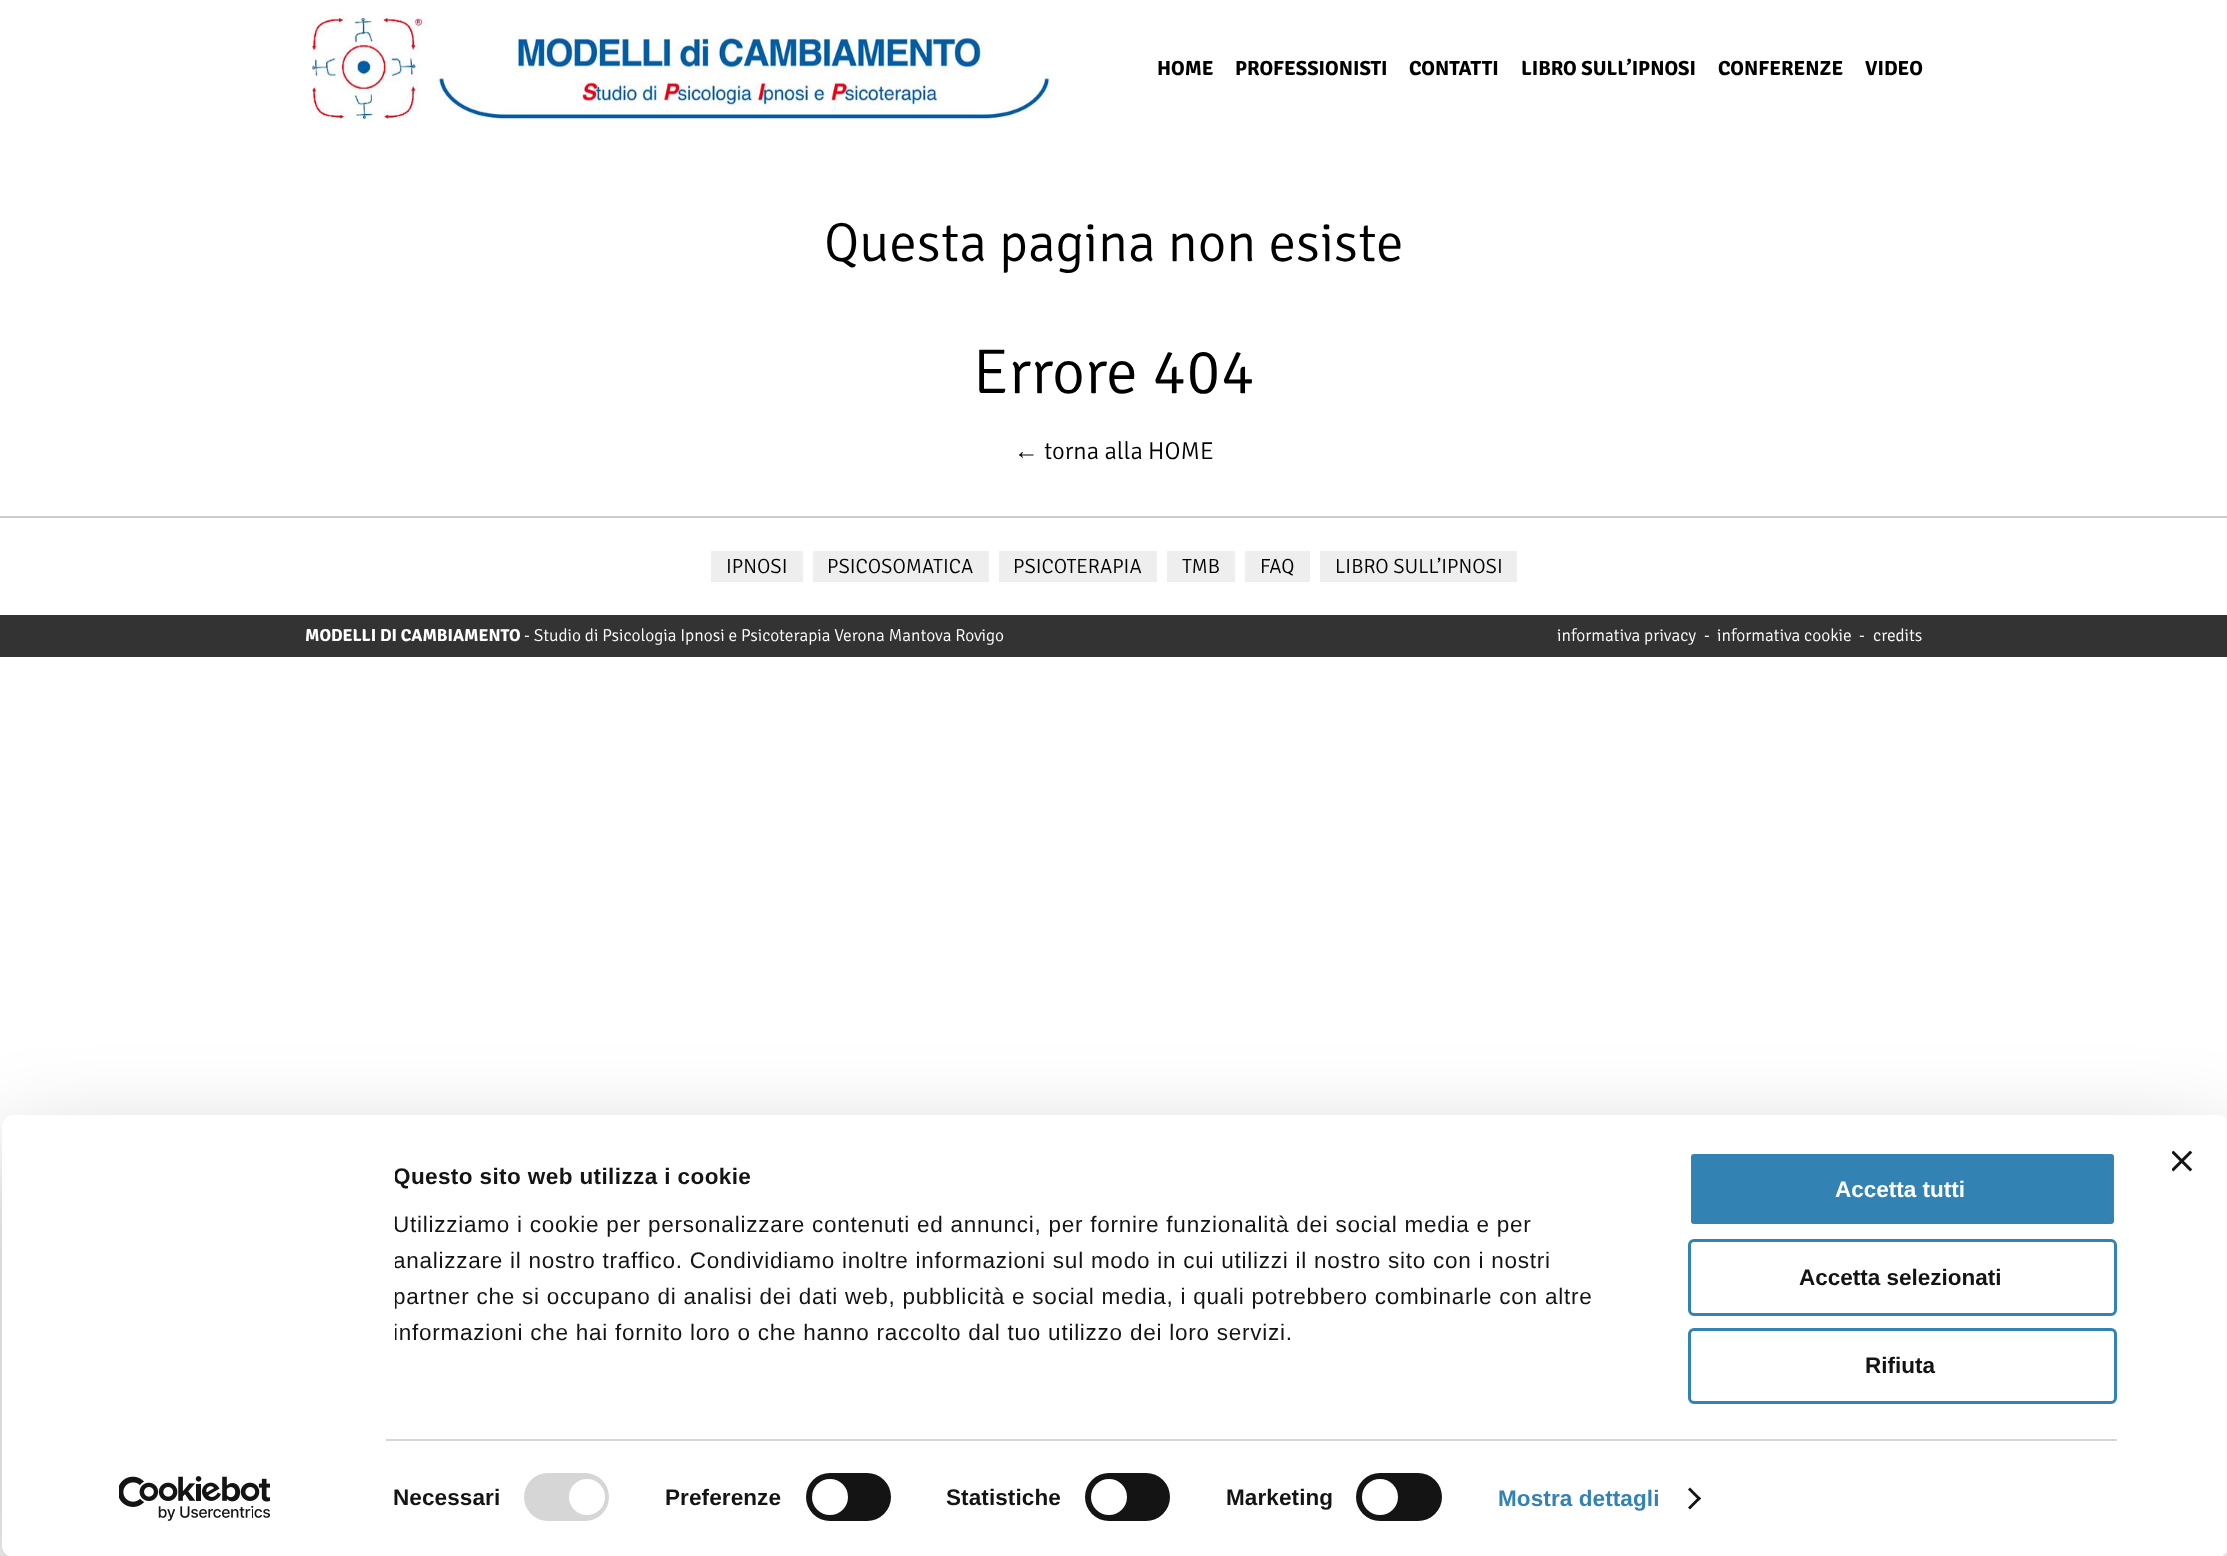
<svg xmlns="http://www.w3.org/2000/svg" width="2227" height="1556">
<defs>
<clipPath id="clip1"><path d="M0 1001h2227v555h-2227zm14 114h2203c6.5 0 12 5.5 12 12v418c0 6.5-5.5 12-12 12h-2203c-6.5 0-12-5.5-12-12v-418c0-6.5 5.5-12 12-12z" clip-rule="evenodd"/></clipPath>
<clipPath id="clip2"><rect x="395" y="1160" width="1249" height="235"/></clipPath>
</defs>
<rect width="100%" height="100%" fill="#fff"/>
<image x="312" y="15" width="738" height="105" href="media/1.png"/>
<text x="1157" y="75" style="font-family:Signika;font-size:20.5px;font-weight:bold;fill:#000">HOME</text>
<text x="1235" y="75" style="font-family:Signika;font-size:20.5px;font-weight:bold;fill:#000">PROFESSIONISTI</text>
<text x="1409" y="75" style="font-family:Signika;font-size:20.5px;font-weight:bold;fill:#000">CONTATTI</text>
<text x="1521" y="75" style="font-family:Signika;font-size:20.5px;font-weight:bold;fill:#000">LIBRO SULL’IPNOSI</text>
<text x="1718" y="75" style="font-family:Signika;font-size:20.5px;font-weight:bold;fill:#000">CONFERENZE</text>
<text x="1865" y="75" style="font-family:Signika;font-size:20.5px;font-weight:bold;fill:#000">VIDEO</text>
<text x="824" y="261" style="font-family:Signika;font-size:55px;font-weight:300;fill:#000">Questa pagina non esiste</text>
<text x="973" y="393" style="font-family:Signika;font-size:63.5px;font-weight:300;fill:#000">Errore 404</text>
<text x="1014" y="459" style="font-family:Liberation Sans;font-size:24.5px;fill:#000">←</text>
<text x="1044" y="459" style="font-family:Signika;font-size:24.5px;font-weight:300;fill:#000">torna alla HOME</text>
<rect y="516" width="2227" height="2" fill="#ccc"/>
<rect x="711" y="551" width="92" height="31" fill="#eee"/>
<text x="726" y="573" style="font-family:Signika;font-size:20.5px;font-weight:300;fill:#000">IPNOSI</text>
<rect x="813" y="551" width="176" height="31" fill="#eee"/>
<text x="827" y="573" style="font-family:Signika;font-size:20.5px;font-weight:300;fill:#000">PSICOSOMATICA</text>
<rect x="999" y="551" width="158" height="31" fill="#eee"/>
<text x="1013" y="573" style="font-family:Signika;font-size:20.5px;font-weight:300;fill:#000">PSICOTERAPIA</text>
<rect x="1167" y="551" width="68" height="31" fill="#eee"/>
<text x="1182" y="573" style="font-family:Signika;font-size:20.5px;font-weight:300;fill:#000">TMB</text>
<rect x="1245" y="551" width="65" height="31" fill="#eee"/>
<text x="1260" y="573" style="font-family:Signika;font-size:20.5px;font-weight:300;fill:#000">FAQ</text>
<rect x="1320" y="551" width="197" height="31" fill="#eee"/>
<text x="1335" y="573" style="font-family:Signika;font-size:20.5px;font-weight:300;fill:#000">LIBRO SULL’IPNOSI</text>
<rect y="615" width="2227" height="42" fill="#333"/>
<text x="305" y="641" style="font-family:Signika;font-size:17.35px;font-weight:bold;fill:#fff">MODELLI DI CAMBIAMENTO</text>
<text x="524" y="641" style="font-family:Signika;font-size:17.35px;font-weight:300;fill:#fff">- Studio di Psicologia Ipnosi e Psicoterapia Verona Mantova Rovigo</text>
<text x="1557" y="641" style="font-family:Signika;font-size:17.35px;font-weight:300;fill:#fff">informativa privacy</text>
<text x="1704" y="641" style="font-family:Signika;font-size:17.35px;font-weight:300;fill:#fff">-</text>
<text x="1717" y="641" style="font-family:Signika;font-size:17.35px;font-weight:300;fill:#fff">informativa cookie</text>
<text x="1859" y="641" style="font-family:Signika;font-size:17.35px;font-weight:300;fill:#fff">-</text>
<text x="1873" y="641" style="font-family:Signika;font-size:17.35px;font-weight:300;fill:#fff">credits</text>
<g clip-path="url(#clip1)">
<rect x="2" y="1160" width="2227" height="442" rx="12" fill="#0000004d" filter="blur(52.5px)"/>
</g>
<rect x="2" y="1115" width="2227" height="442" rx="12" fill="#fff"/>
<image x="2172" y="1151" width="21" height="21" href="media/2.png"/>
<g clip-path="url(#clip2)">
<text x="393" y="1184" style="font-family:Liberation Sans;font-size:22.5px;font-weight:bold;letter-spacing:0.4px;fill:#141414">Questo sito web utilizza i cookie</text>
<text x="393" y="1232" style="font-family:Liberation Sans;font-size:22.5px;letter-spacing:0.75px;fill:#141414">Utilizziamo i cookie per personalizzare contenuti ed annunci, per fornire funzionalità dei social media e per</text>
<text x="393" y="1268" style="font-family:Liberation Sans;font-size:22.5px;letter-spacing:0.75px;fill:#141414">analizzare il nostro traffico. Condividiamo inoltre informazioni sul modo in cui utilizzi il nostro sito con i nostri</text>
<text x="393" y="1304" style="font-family:Liberation Sans;font-size:22.5px;letter-spacing:0.75px;fill:#141414">partner che si occupano di analisi dei dati web, pubblicità e social media, i quali potrebbero combinarle con altre</text>
<text x="393" y="1340" style="font-family:Liberation Sans;font-size:22.5px;letter-spacing:0.75px;fill:#141414">informazioni che hai fornito loro o che hanno raccolto dal tuo utilizzo dei loro servizi.</text>
</g>
<rect x="386" y="1439" width="1731" height="2" fill="#d6d6d6"/>
<text x="393" y="1505" style="font-family:Liberation Sans;font-size:22.5px;font-weight:bold;letter-spacing:0.1px;fill:#141414">Necessari</text>
<rect x="524" y="1473" width="85" height="48" rx="24" fill="#d6d6d6"/>
<circle cx="587" cy="1497" r="18" fill="#fff"/>
<text x="665" y="1505" style="font-family:Liberation Sans;font-size:22.5px;font-weight:bold;letter-spacing:0.1px;fill:#141414">Preferenze</text>
<rect x="806" y="1473" width="85" height="48" rx="24" fill="#141414"/>
<circle cx="830" cy="1497" r="18" fill="#fff"/>
<text x="946" y="1505" style="font-family:Liberation Sans;font-size:22.5px;font-weight:bold;letter-spacing:0.1px;fill:#141414">Statistiche</text>
<rect x="1085" y="1473" width="85" height="48" rx="24" fill="#141414"/>
<circle cx="1109" cy="1497" r="18" fill="#fff"/>
<text x="1226" y="1505" style="font-family:Liberation Sans;font-size:22.5px;font-weight:bold;letter-spacing:0.1px;fill:#141414">Marketing</text>
<rect x="1356" y="1473" width="86" height="48" rx="24" fill="#141414"/>
<circle cx="1380" cy="1497" r="18" fill="#fff"/>
<text x="1498" y="1506" style="font-family:Liberation Sans;font-size:22.5px;font-weight:bold;letter-spacing:0.1px;fill:#3282b4">Mostra dettagli</text>
<path d="M1690 1487.5l11 11l-2 2l-11-11z" fill="#141414"/>
<path d="M1699 1496.5l2 2l-11 11l-2-2z" fill="#141414"/>
<rect x="1689.5" y="1152.5" width="426" height="73" rx="4.5" fill="#3282b4" stroke="#fff" stroke-width="3"/>
<text x="1835" y="1197" style="font-family:Liberation Sans;font-size:22.5px;font-weight:bold;fill:#fff">Accetta tutti</text>
<rect x="1689.5" y="1240.5" width="426" height="74" rx="4.5" fill="none" stroke="#3282b4" stroke-width="3"/>
<text x="1799" y="1285" style="font-family:Liberation Sans;font-size:22.5px;font-weight:bold;fill:#141414">Accetta selezionati</text>
<rect x="1689.5" y="1329.5" width="426" height="73" rx="4.5" fill="none" stroke="#3282b4" stroke-width="3"/>
<text x="1865" y="1373" style="font-family:Liberation Sans;font-size:22.5px;font-weight:bold;fill:#141414">Rifiuta</text>
<image x="119" y="1476" width="151" height="45" href="media/3.png"/>
</svg>
